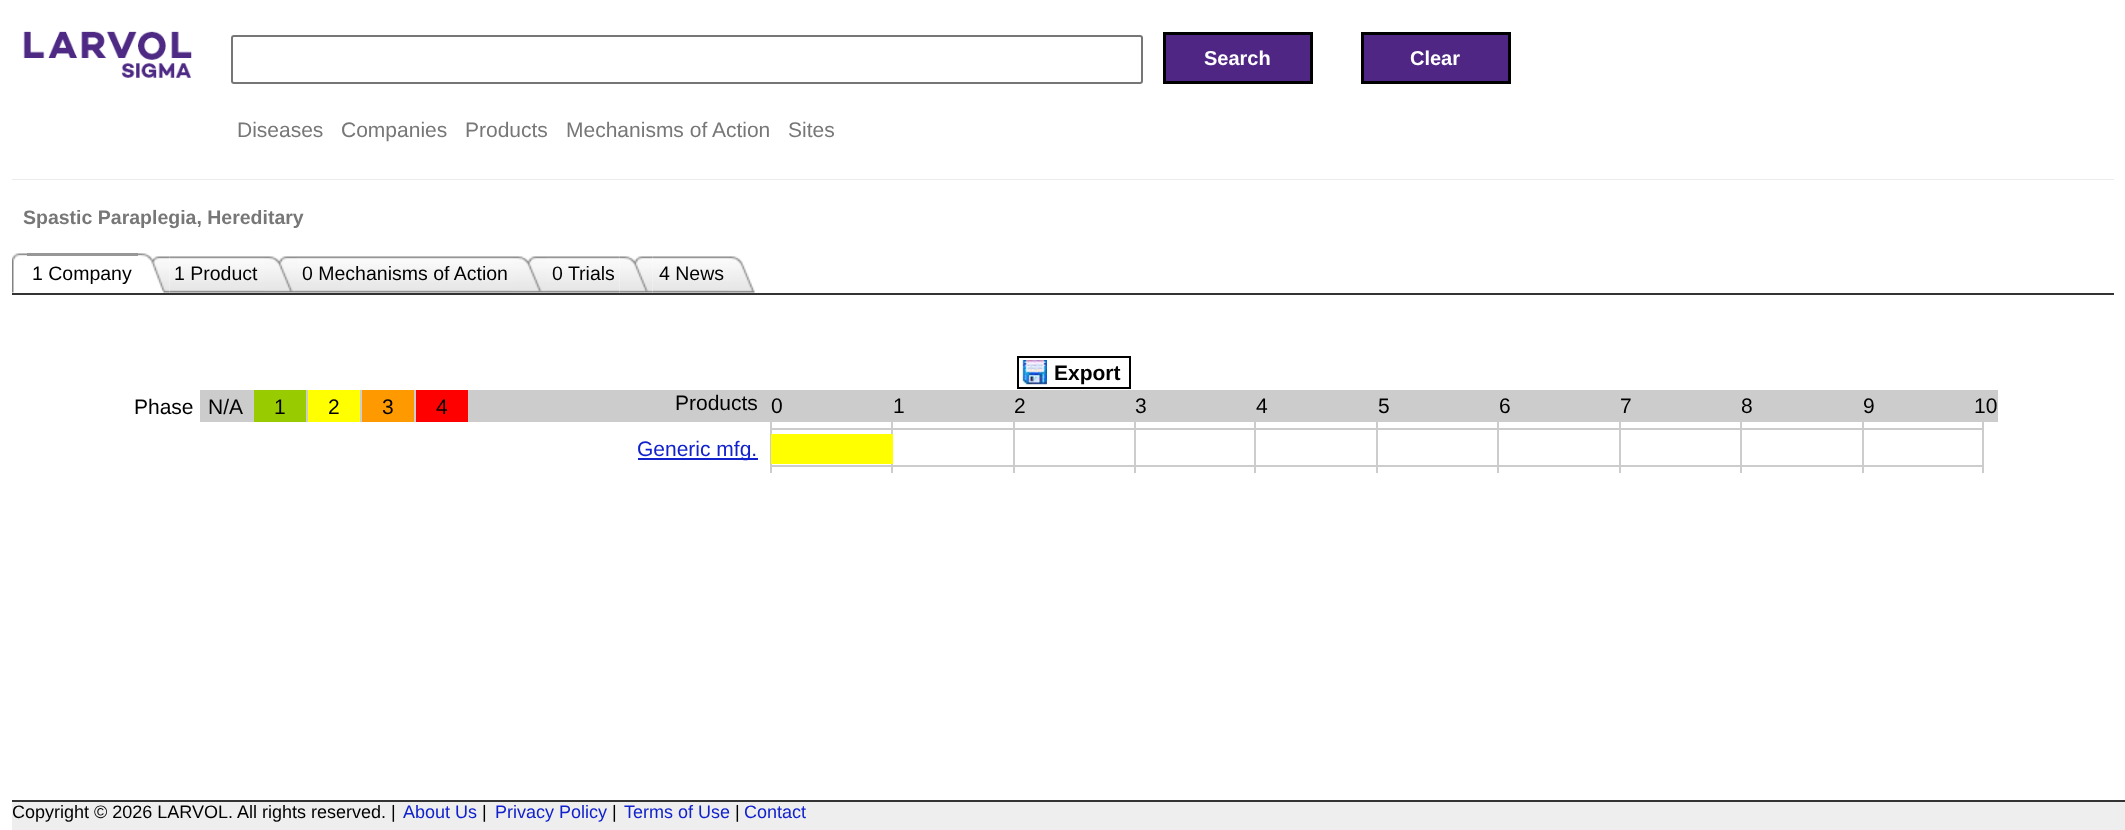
<svg xmlns="http://www.w3.org/2000/svg" width="2125" height="830">
<rect width="100%" height="100%" fill="#fff"/>
<rect x="12" y="179" width="2102" height="1" fill="#ebebeb"/>
<image x="23" y="31" width="169" height="47" href="media/1.png"/>
<rect x="232" y="36" width="910" height="47" rx="2" fill="none" stroke="#767676" stroke-width="2"/>
<rect x="1164.5" y="33.5" width="147" height="49" fill="#4f2683" stroke="#000" stroke-width="3"/>
<text x="1204" y="65" style="font-family:Liberation Sans;font-size:20px;font-weight:bold;fill:#fff">Search</text>
<rect x="1362.5" y="33.5" width="147" height="49" fill="#4f2683" stroke="#000" stroke-width="3"/>
<text x="1410" y="65" style="font-family:Liberation Sans;font-size:20px;font-weight:bold;fill:#fff">Clear</text>
<text x="237" y="137" style="font-family:Liberation Sans;font-size:21px;fill:#777">Diseases</text>
<text x="341" y="137" style="font-family:Liberation Sans;font-size:21px;fill:#777">Companies</text>
<text x="465" y="137" style="font-family:Liberation Sans;font-size:21px;fill:#777">Products</text>
<text x="566" y="137" style="font-family:Liberation Sans;font-size:21px;fill:#777">Mechanisms of Action</text>
<text x="788" y="137" style="font-family:Liberation Sans;font-size:21px;fill:#777">Sites</text>
<text x="23" y="224" style="font-family:Liberation Sans;font-size:19.5px;font-weight:bold;fill:#777">Spastic Paraplegia, Hereditary</text>
<image x="12" y="253" width="15" height="40" href="media/2.png"/>
<rect x="27" y="253" width="111" height="3" fill="#979797"/>
<text x="32" y="280" style="font-family:Liberation Sans;font-size:19.5px;fill:#000">1 Company</text>
<image x="169" y="256" width="95" height="37" href="media/4.png"/>
<image x="138" y="253" width="32" height="40" href="media/3.png"/>
<text x="174" y="280" style="font-family:Liberation Sans;font-size:19.5px;fill:#000">1 Product</text>
<image x="264" y="256" width="33" height="37" href="media/5.png"/>
<image x="297" y="256" width="216" height="37" href="media/6.png"/>
<text x="302" y="280" style="font-family:Liberation Sans;font-size:19.5px;fill:#000">0 Mechanisms of Action</text>
<image x="513" y="256" width="33" height="37" href="media/7.png"/>
<image x="546" y="256" width="74" height="37" href="media/8.png"/>
<text x="552" y="280" style="font-family:Liberation Sans;font-size:19.5px;fill:#000">0 Trials</text>
<image x="652" y="256" width="77" height="37" href="media/10.png"/>
<image x="619" y="256" width="34" height="37" href="media/9.png"/>
<text x="659" y="280" style="font-family:Liberation Sans;font-size:19.5px;fill:#000">4 News</text>
<image x="729" y="256" width="26" height="37" href="media/11.png"/>
<rect x="12" y="293" width="2102" height="2" fill="#333"/>
<rect x="1018" y="357" width="112" height="31" fill="none" stroke="#000" stroke-width="2"/>
<image x="1022" y="360" width="25" height="25" href="media/12.png"/>
<text x="1054" y="380" style="font-family:Liberation Sans;font-size:21px;font-weight:bold;fill:#000">Export</text>
<rect x="200" y="390" width="1798" height="32" fill="#ccc"/>
<text x="134" y="414" style="font-family:Liberation Sans;font-size:21px;fill:#000">Phase</text>
<text x="208" y="414" style="font-family:Liberation Sans;font-size:21px;fill:#000">N/A</text>
<rect x="254" y="390" width="52" height="32" fill="#9c0"/>
<text x="274" y="414" style="font-family:Liberation Sans;font-size:21px;fill:#000">1</text>
<rect x="308" y="390" width="52" height="32" fill="#ff0"/>
<text x="328" y="414" style="font-family:Liberation Sans;font-size:21px;fill:#000">2</text>
<rect x="362" y="390" width="52" height="32" fill="#f90"/>
<text x="382" y="414" style="font-family:Liberation Sans;font-size:21px;fill:#000">3</text>
<rect x="416" y="390" width="52" height="32" fill="#f00"/>
<text x="436" y="414" style="font-family:Liberation Sans;font-size:21px;fill:#000">4</text>
<text x="675" y="410" style="font-family:Liberation Sans;font-size:21px;fill:#000">Products</text>
<text x="771" y="413" style="font-family:Liberation Sans;font-size:21px;fill:#000">0</text>
<text x="893" y="413" style="font-family:Liberation Sans;font-size:21px;fill:#000">1</text>
<text x="1014" y="413" style="font-family:Liberation Sans;font-size:21px;fill:#000">2</text>
<text x="1135" y="413" style="font-family:Liberation Sans;font-size:21px;fill:#000">3</text>
<text x="1256" y="413" style="font-family:Liberation Sans;font-size:21px;fill:#000">4</text>
<text x="1378" y="413" style="font-family:Liberation Sans;font-size:21px;fill:#000">5</text>
<text x="1499" y="413" style="font-family:Liberation Sans;font-size:21px;fill:#000">6</text>
<text x="1620" y="413" style="font-family:Liberation Sans;font-size:21px;fill:#000">7</text>
<text x="1741" y="413" style="font-family:Liberation Sans;font-size:21px;fill:#000">8</text>
<text x="1863" y="413" style="font-family:Liberation Sans;font-size:21px;fill:#000">9</text>
<text x="1974" y="413" style="font-family:Liberation Sans;font-size:21px;fill:#000">10</text>
<rect x="770" y="422" width="2" height="7" fill="#ccc"/>
<rect x="891" y="422" width="2" height="7" fill="#ccc"/>
<rect x="771" y="428" width="122" height="2" fill="#ccc"/>
<rect x="1013" y="422" width="2" height="7" fill="#ccc"/>
<rect x="893" y="428" width="121" height="2" fill="#ccc"/>
<rect x="1134" y="422" width="2" height="7" fill="#ccc"/>
<rect x="1014" y="428" width="122" height="2" fill="#ccc"/>
<rect x="1254" y="422" width="2" height="7" fill="#ccc"/>
<rect x="1136" y="428" width="120" height="2" fill="#ccc"/>
<rect x="1376" y="422" width="2" height="7" fill="#ccc"/>
<rect x="1256" y="428" width="121" height="2" fill="#ccc"/>
<rect x="1497" y="422" width="2" height="7" fill="#ccc"/>
<rect x="1377" y="428" width="122" height="2" fill="#ccc"/>
<rect x="1619" y="422" width="2" height="7" fill="#ccc"/>
<rect x="1499" y="428" width="121" height="2" fill="#ccc"/>
<rect x="1740" y="422" width="2" height="7" fill="#ccc"/>
<rect x="1620" y="428" width="122" height="2" fill="#ccc"/>
<rect x="1862" y="422" width="2" height="7" fill="#ccc"/>
<rect x="1742" y="428" width="121" height="2" fill="#ccc"/>
<rect x="1982" y="422" width="2" height="7" fill="#ccc"/>
<rect x="1863" y="428" width="120" height="2" fill="#ccc"/>
<rect x="770" y="429" width="2" height="44" fill="#ccc"/>
<rect x="891" y="430" width="2" height="4" fill="#ccc"/>
<rect x="1013" y="430" width="2" height="35" fill="#ccc"/>
<rect x="1134" y="430" width="2" height="35" fill="#ccc"/>
<rect x="1254" y="430" width="2" height="35" fill="#ccc"/>
<rect x="1376" y="430" width="2" height="35" fill="#ccc"/>
<rect x="1497" y="430" width="2" height="35" fill="#ccc"/>
<rect x="1619" y="430" width="2" height="35" fill="#ccc"/>
<rect x="1740" y="430" width="2" height="35" fill="#ccc"/>
<rect x="1862" y="430" width="2" height="35" fill="#ccc"/>
<rect x="1982" y="429" width="2" height="36" fill="#ccc"/>
<rect x="638" y="458" width="120" height="2" fill="#12c"/>
<text x="637" y="456" style="font-family:Liberation Sans;font-size:21px;fill:#12c">Generic mfg.</text>
<rect x="771" y="434" width="122" height="30" fill="#ff0"/>
<rect x="891" y="464" width="2" height="1" fill="#ccc"/>
<rect x="771" y="465" width="243" height="2" fill="#ccc"/>
<rect x="891" y="465" width="2" height="8" fill="#ccc"/>
<rect x="1013" y="465" width="2" height="8" fill="#ccc"/>
<rect x="1014" y="465" width="363" height="2" fill="#ccc"/>
<rect x="1134" y="465" width="2" height="8" fill="#ccc"/>
<rect x="1254" y="465" width="2" height="8" fill="#ccc"/>
<rect x="1376" y="465" width="2" height="8" fill="#ccc"/>
<rect x="1377" y="465" width="243" height="2" fill="#ccc"/>
<rect x="1497" y="465" width="2" height="8" fill="#ccc"/>
<rect x="1619" y="465" width="2" height="8" fill="#ccc"/>
<rect x="1620" y="465" width="243" height="2" fill="#ccc"/>
<rect x="1740" y="465" width="2" height="8" fill="#ccc"/>
<rect x="1862" y="465" width="2" height="8" fill="#ccc"/>
<rect x="1863" y="465" width="120" height="2" fill="#ccc"/>
<rect x="1982" y="465" width="2" height="8" fill="#ccc"/>
<rect x="12" y="802" width="2113" height="28" fill="#eee"/>
<rect x="12" y="800" width="2113" height="2" fill="#333"/>
<text x="12" y="818" style="font-family:Liberation Sans;font-size:18px;fill:#000">Copyright © 2026 LARVOL. All rights reserved. |</text>
<text x="403" y="818" style="font-family:Liberation Sans;font-size:18px;fill:#12c">About Us</text>
<text x="482" y="818" style="font-family:Liberation Sans;font-size:18px;fill:#000">|</text>
<text x="495" y="818" style="font-family:Liberation Sans;font-size:18px;fill:#12c">Privacy Policy</text>
<text x="612" y="818" style="font-family:Liberation Sans;font-size:18px;fill:#000">|</text>
<text x="624" y="818" style="font-family:Liberation Sans;font-size:18px;fill:#12c">Terms of Use</text>
<text x="735" y="818" style="font-family:Liberation Sans;font-size:18px;fill:#000">|</text>
<text x="744" y="818" style="font-family:Liberation Sans;font-size:18px;fill:#12c">Contact</text>
</svg>
